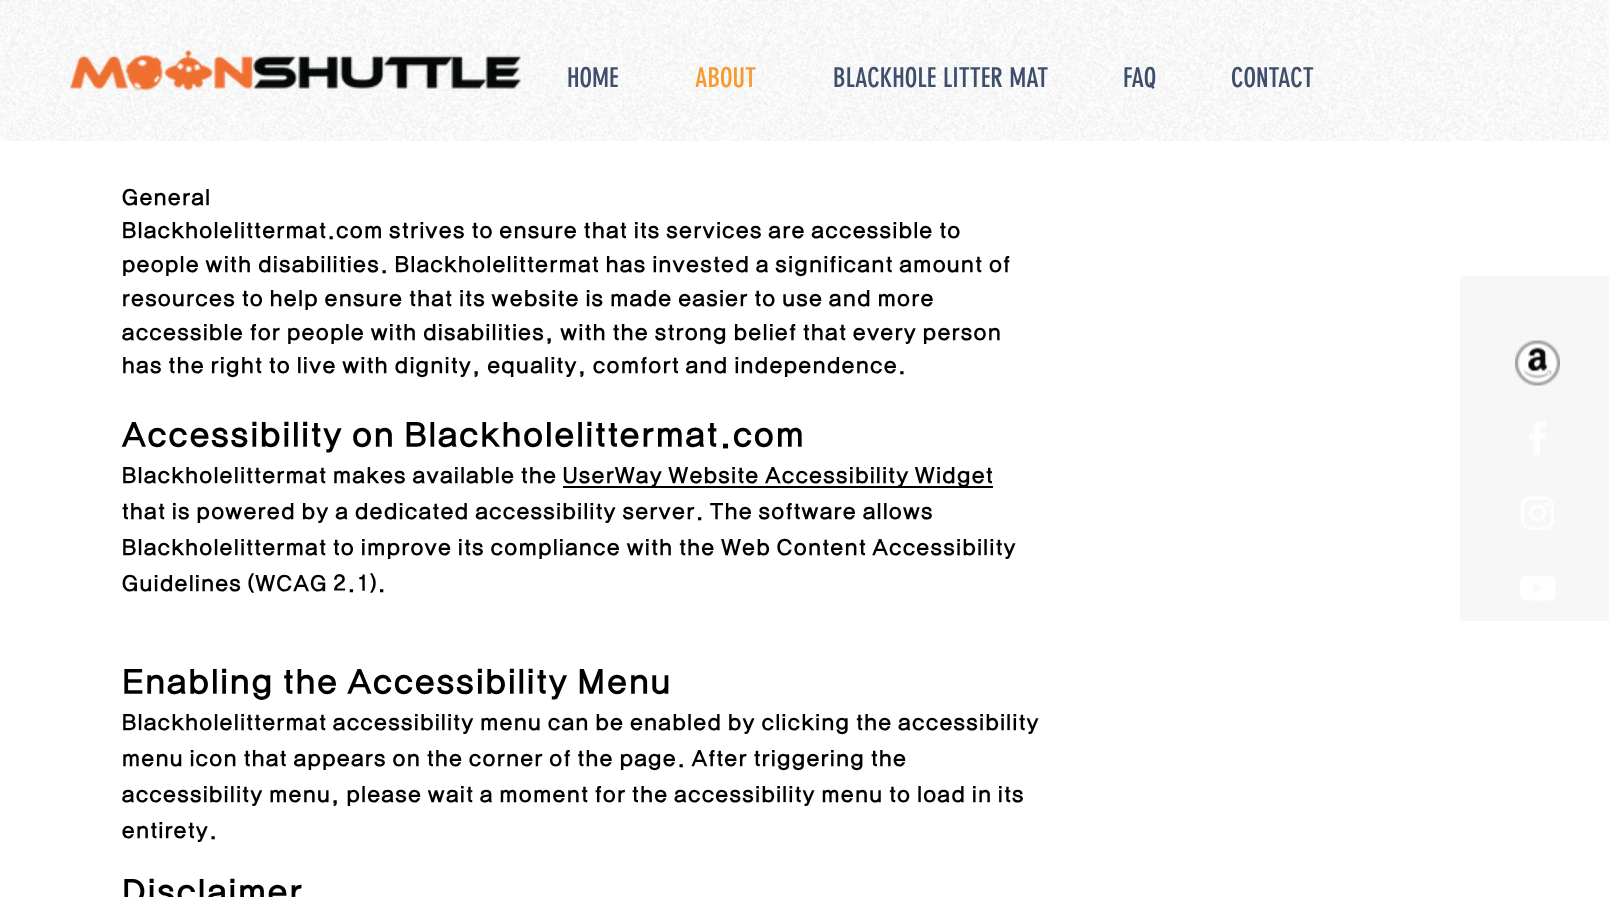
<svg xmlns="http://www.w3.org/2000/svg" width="1609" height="897">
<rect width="100%" height="100%" fill="#fff"/>
<image x="0" y="0" width="1609" height="141" href="media/1.png"/>
<image x="70" y="49" width="451" height="42" href="media/2.png"/>
<text x="567" y="87" style="font-family:'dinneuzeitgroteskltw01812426';font-size:27px;fill:#3e4e6b">HOME</text>
<text x="695" y="87" style="font-family:'dinneuzeitgroteskltw01812426';font-size:27px;fill:#f79a2f">ABOUT</text>
<text x="833" y="87" style="font-family:'dinneuzeitgroteskltw01812426';font-size:27px;fill:#3e4e6b">BLACKHOLE LITTER MAT</text>
<text x="1123" y="87" style="font-family:'dinneuzeitgroteskltw01812426';font-size:27px;fill:#3e4e6b">FAQ</text>
<text x="1231" y="87" style="font-family:'dinneuzeitgroteskltw01812426';font-size:27px;fill:#3e4e6b">CONTACT</text>
<text x="121" y="206" style="font-family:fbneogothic;font-size:22.5px;font-weight:bold;fill:#000">General</text>
<text x="121" y="239" style="font-family:fbneogothic;font-size:22.5px;font-weight:bold;fill:#000">Blackholelittermat.com strives to ensure that its services are accessible to</text>
<text x="121" y="273" style="font-family:fbneogothic;font-size:22.5px;font-weight:bold;fill:#000">people with disabilities. Blackholelittermat has invested a significant amount of</text>
<text x="121" y="307" style="font-family:fbneogothic;font-size:22.5px;font-weight:bold;fill:#000">resources to help ensure that its website is made easier to use and more</text>
<text x="121" y="341" style="font-family:fbneogothic;font-size:22.5px;font-weight:bold;fill:#000">accessible for people with disabilities, with the strong belief that every person</text>
<text x="121" y="374" style="font-family:fbneogothic;font-size:22.5px;font-weight:bold;fill:#000">has the right to live with dignity, equality, comfort and independence.</text>
<text x="121" y="448" style="font-family:fbneogothic;font-size:34.5px;font-weight:bold;fill:#000">Accessibility on Blackholelittermat.com</text>
<text x="121" y="484" style="font-family:fbneogothic;font-size:22.5px;font-weight:bold;fill:#000">Blackholelittermat makes available the</text>
<rect x="563" y="486" width="430" height="2" fill="#000"/>
<text x="562" y="484" style="font-family:fbneogothic;font-size:22.5px;font-weight:bold;fill:#000">UserWay Website Accessibility Widget</text>
<text x="121" y="520" style="font-family:fbneogothic;font-size:22.5px;font-weight:bold;fill:#000">that is powered by a dedicated accessibility server. The software allows</text>
<text x="121" y="556" style="font-family:fbneogothic;font-size:22.5px;font-weight:bold;fill:#000">Blackholelittermat to improve its compliance with the Web Content Accessibility</text>
<text x="121" y="592" style="font-family:fbneogothic;font-size:22.5px;font-weight:bold;fill:#000">Guidelines (WCAG 2.1).</text>
<text x="121" y="695" style="font-family:fbneogothic;font-size:34.5px;font-weight:bold;fill:#000">Enabling the Accessibility Menu</text>
<text x="121" y="731" style="font-family:fbneogothic;font-size:22.5px;font-weight:bold;fill:#000">Blackholelittermat accessibility menu can be enabled by clicking the accessibility</text>
<text x="121" y="767" style="font-family:fbneogothic;font-size:22.5px;font-weight:bold;fill:#000">menu icon that appears on the corner of the page. After triggering the</text>
<text x="121" y="803" style="font-family:fbneogothic;font-size:22.5px;font-weight:bold;fill:#000">accessibility menu, please wait a moment for the accessibility menu to load in its</text>
<text x="121" y="839" style="font-family:fbneogothic;font-size:22.5px;font-weight:bold;fill:#000">entirety.</text>
<text x="121" y="905" style="font-family:fbneogothic;font-size:34.5px;font-weight:bold;fill:#000">Disclaimer</text>
<rect x="1460" y="276" width="149" height="345" fill="#f7f7f7"/>
<image x="1515" y="340" width="45" height="46" href="media/3.png"/>
<image x="1529" y="421" width="17" height="34" href="media/4.png"/>
<image x="1521" y="496" width="33" height="34" href="media/5.png"/>
<image x="1520" y="576" width="36" height="25" href="media/6.png"/>
</svg>
